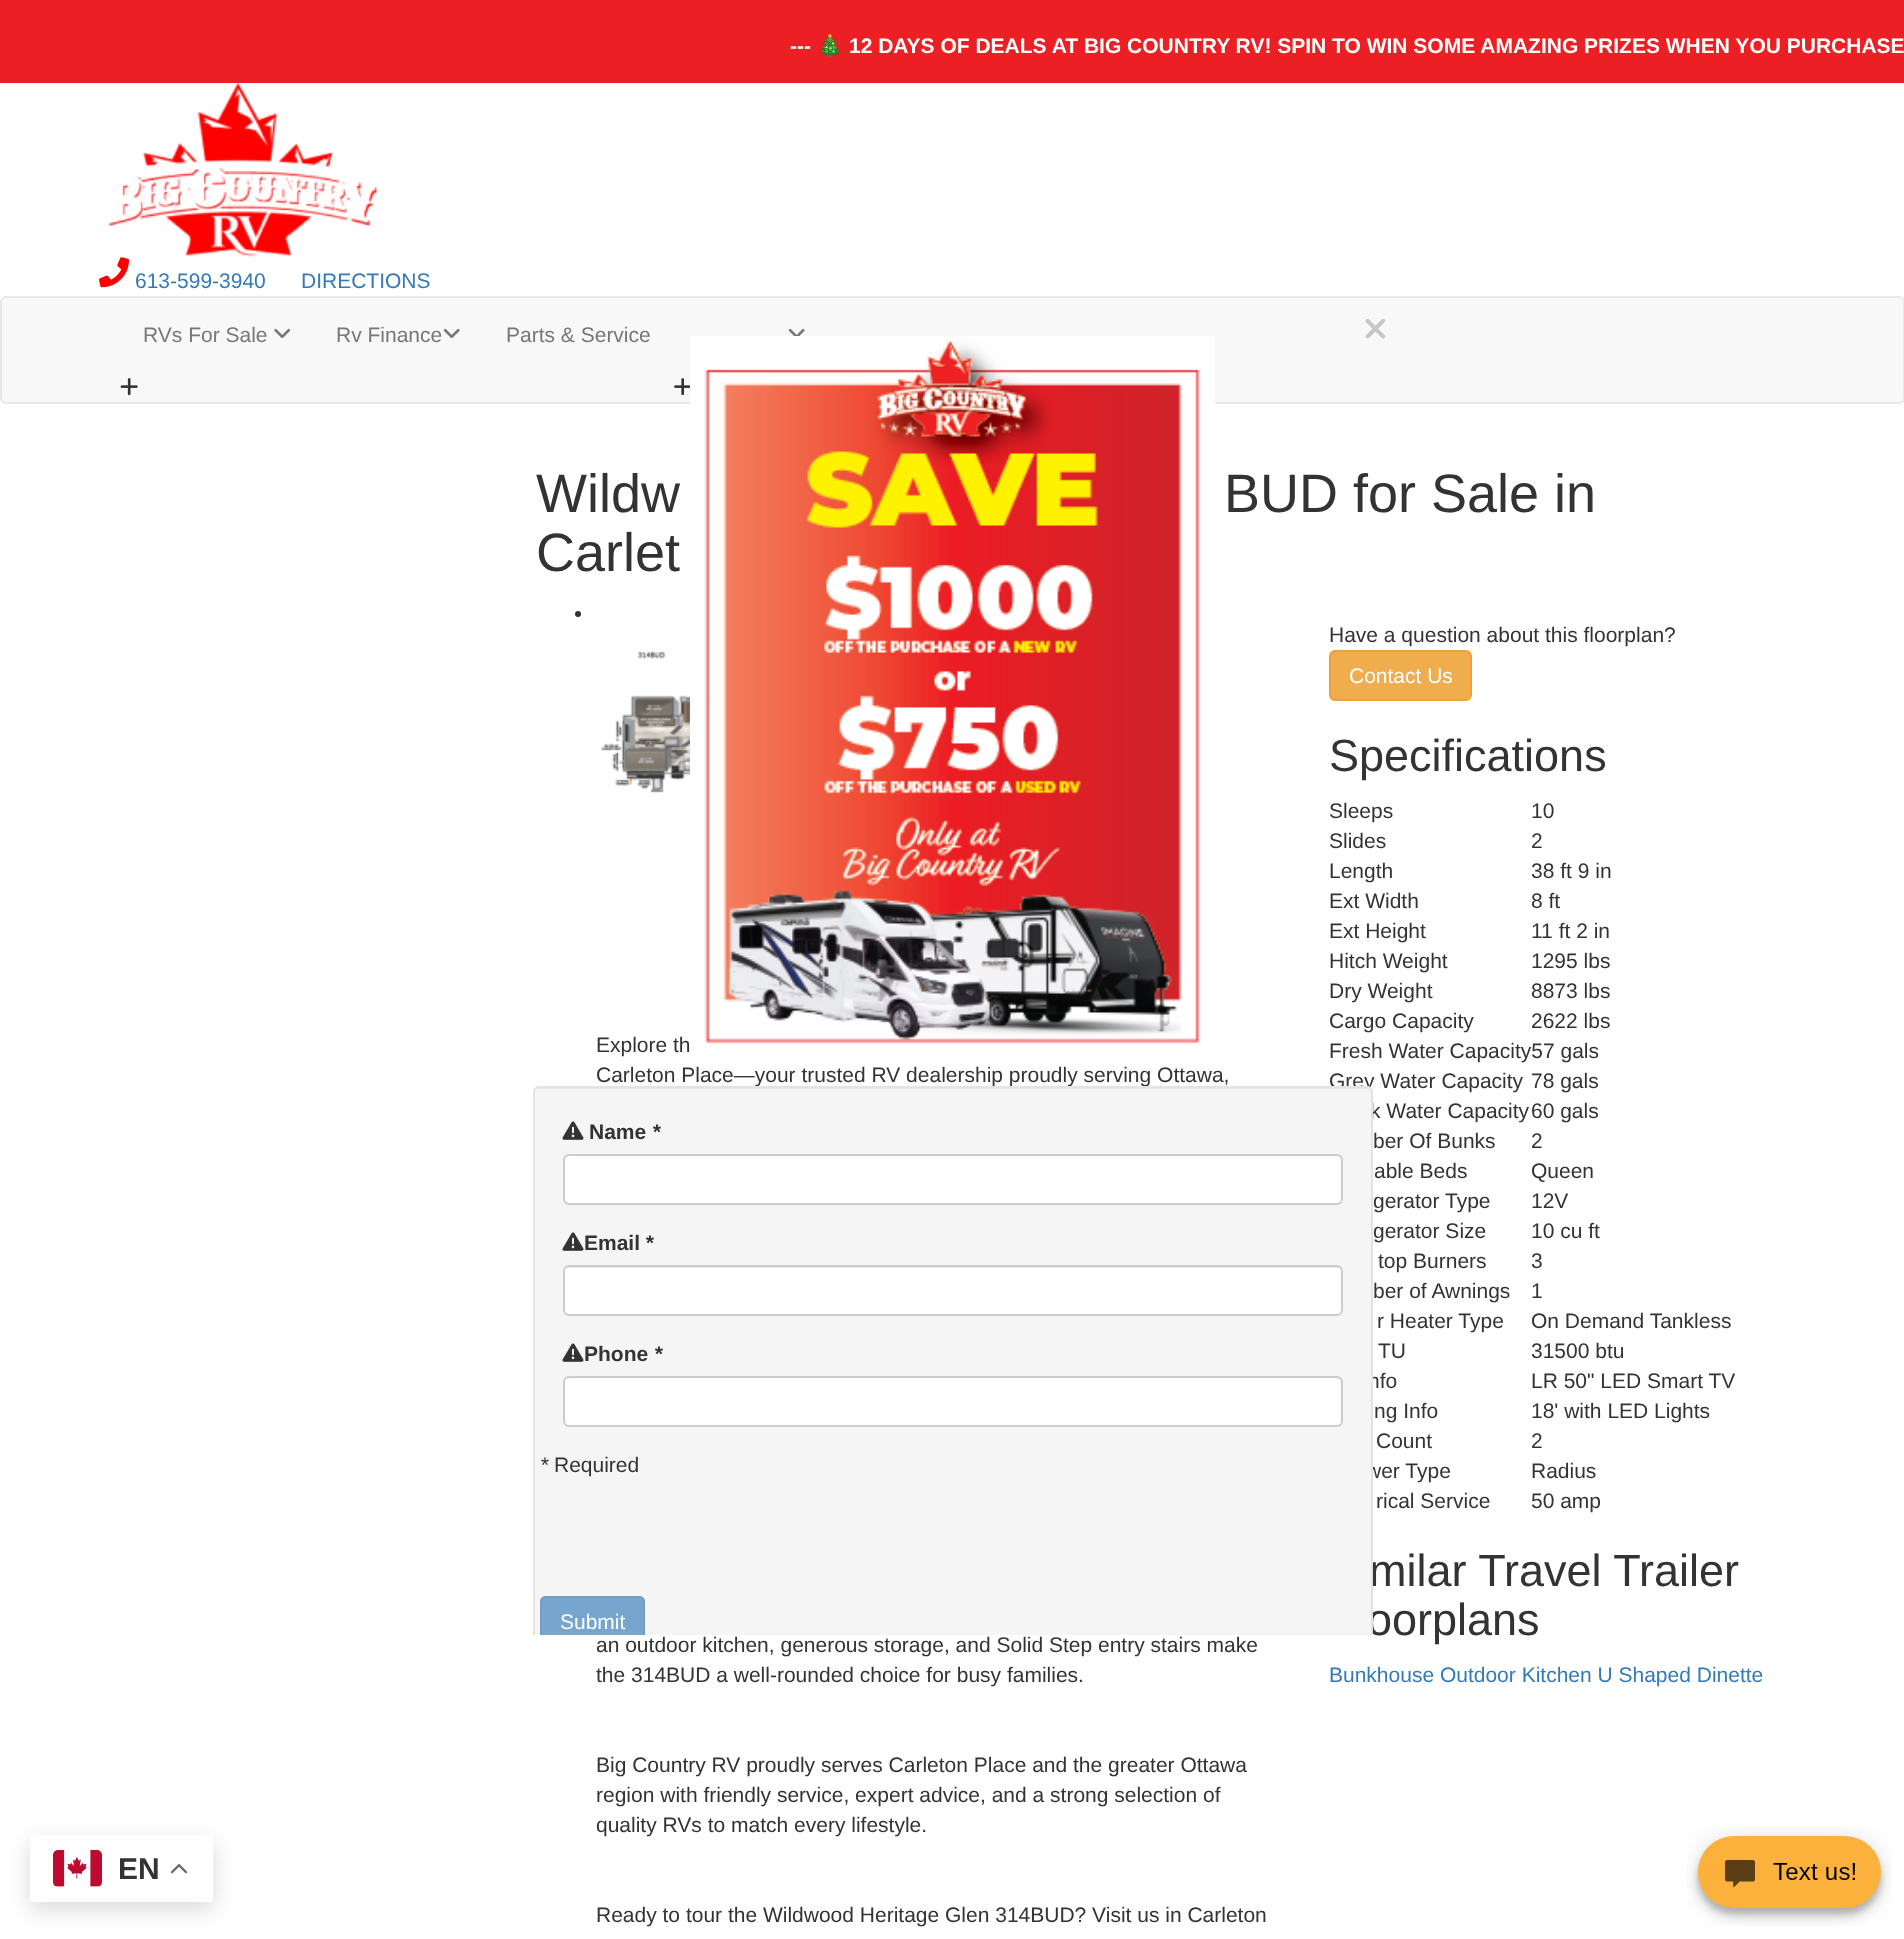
<svg xmlns="http://www.w3.org/2000/svg" width="1904" height="1939">
<defs>
<clipPath id="clip1"><rect x="503" y="306" width="900" height="1329"/></clipPath>
</defs>
<rect width="100%" height="100%" fill="#fff"/>
<rect width="1904" height="83" fill="#ec2024"/>
<text x="790" y="53" style="font-family:Liberation Sans;font-size:21px;font-weight:bold;fill:#fff">---</text>
<text x="817" y="53" style="font-family:Noto Color Emoji;font-size:21px;font-weight:bold;fill:#fff">🎄</text>
<text x="849" y="53" style="font-family:Liberation Sans;font-size:21px;font-weight:bold;fill:#fff">12 DAYS OF DEALS AT BIG COUNTRY RV! SPIN TO WIN SOME AMAZING PRIZES WHEN YOU PURCHASE</text>
<image x="108" y="83" width="269" height="174" href="media/1.png"/>
<image x="99" y="257" width="30" height="31" href="media/2.png"/>
<text x="135" y="288" style="font-family:Liberation Sans;font-size:21px;fill:#337ab7">613-599-3940</text>
<text x="301" y="288" style="font-family:Liberation Sans;font-size:21px;fill:#337ab7">DIRECTIONS</text>
<rect x="1" y="297" width="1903" height="106" rx="5" fill="#f8f8f8" stroke="#e7e7e7" stroke-width="2"/>
<text x="143" y="342" style="font-family:Liberation Sans;font-size:21px;fill:#777">RVs For Sale</text>
<image x="274" y="328" width="16" height="10" href="media/3.png"/>
<image x="120" y="378" width="18" height="18" href="media/4.png"/>
<text x="336" y="342" style="font-family:Liberation Sans;font-size:21px;fill:#777">Rv Finance</text>
<image x="443" y="328" width="17" height="10" href="media/5.png"/>
<text x="506" y="342" style="font-family:Liberation Sans;font-size:21px;fill:#777">Parts &amp; Service</text>
<image x="788" y="328" width="17" height="8" href="media/6.png"/>
<image x="674" y="378" width="16" height="18" href="media/7.png"/>
<text x="536" y="512" style="font-family:Liberation Sans;font-size:54px;fill:#333">Wildw</text>
<text x="1224" y="512" style="font-family:Liberation Sans;font-size:54px;fill:#333">BUD for Sale in</text>
<text x="536" y="571" style="font-family:Liberation Sans;font-size:54px;fill:#333">Carlet</text>
<circle cx="578" cy="614" r="3" fill="#333"/>
<image x="601" y="651" width="89" height="144" href="media/8.png"/>
<text x="596" y="1052" style="font-family:Liberation Sans;font-size:21px;fill:#333">Explore th</text>
<text x="596" y="1082" style="font-family:Liberation Sans;font-size:21px;fill:#333">Carleton Place—your trusted RV dealership proudly serving Ottawa,</text>
<text x="596" y="1652" style="font-family:Liberation Sans;font-size:21px;fill:#333">an outdoor kitchen, generous storage, and Solid Step entry stairs make</text>
<text x="596" y="1682" style="font-family:Liberation Sans;font-size:21px;fill:#333">the 314BUD a well-rounded choice for busy families.</text>
<text x="596" y="1772" style="font-family:Liberation Sans;font-size:21px;fill:#333">Big Country RV proudly serves Carleton Place and the greater Ottawa</text>
<text x="596" y="1802" style="font-family:Liberation Sans;font-size:21px;fill:#333">region with friendly service, expert advice, and a strong selection of</text>
<text x="596" y="1832" style="font-family:Liberation Sans;font-size:21px;fill:#333">quality RVs to match every lifestyle.</text>
<text x="596" y="1922" style="font-family:Liberation Sans;font-size:21px;fill:#333">Ready to tour the Wildwood Heritage Glen 314BUD? Visit us in Carleton</text>
<text x="1329" y="642" style="font-family:Liberation Sans;font-size:21px;fill:#333">Have a question about this floorplan?</text>
<rect x="1330" y="651" width="141" height="49" rx="5" fill="#f0ad4e" stroke="#eea236" stroke-width="2"/>
<text x="1349" y="683" style="font-family:Liberation Sans;font-size:21px;fill:#fff">Contact Us</text>
<text x="1329" y="771" style="font-family:Liberation Sans;font-size:45px;fill:#333">Specifications</text>
<text x="1329" y="818" style="font-family:Liberation Sans;font-size:21px;fill:#333">Sleeps</text>
<text x="1531" y="818" style="font-family:Liberation Sans;font-size:21px;fill:#333">10</text>
<text x="1329" y="848" style="font-family:Liberation Sans;font-size:21px;fill:#333">Slides</text>
<text x="1531" y="848" style="font-family:Liberation Sans;font-size:21px;fill:#333">2</text>
<text x="1329" y="878" style="font-family:Liberation Sans;font-size:21px;fill:#333">Length</text>
<text x="1531" y="878" style="font-family:Liberation Sans;font-size:21px;fill:#333">38 ft 9 in</text>
<text x="1329" y="908" style="font-family:Liberation Sans;font-size:21px;fill:#333">Ext Width</text>
<text x="1531" y="908" style="font-family:Liberation Sans;font-size:21px;fill:#333">8 ft</text>
<text x="1329" y="938" style="font-family:Liberation Sans;font-size:21px;fill:#333">Ext Height</text>
<text x="1531" y="938" style="font-family:Liberation Sans;font-size:21px;fill:#333">11 ft 2 in</text>
<text x="1329" y="968" style="font-family:Liberation Sans;font-size:21px;fill:#333">Hitch Weight</text>
<text x="1531" y="968" style="font-family:Liberation Sans;font-size:21px;fill:#333">1295 lbs</text>
<text x="1329" y="998" style="font-family:Liberation Sans;font-size:21px;fill:#333">Dry Weight</text>
<text x="1531" y="998" style="font-family:Liberation Sans;font-size:21px;fill:#333">8873 lbs</text>
<text x="1329" y="1028" style="font-family:Liberation Sans;font-size:21px;fill:#333">Cargo Capacity</text>
<text x="1531" y="1028" style="font-family:Liberation Sans;font-size:21px;fill:#333">2622 lbs</text>
<text x="1329" y="1058" style="font-family:Liberation Sans;font-size:21px;fill:#333">Fresh Water Capacity57 gals</text>
<text x="1329" y="1088" style="font-family:Liberation Sans;font-size:21px;fill:#333">Grey Water Capacity</text>
<text x="1531" y="1088" style="font-family:Liberation Sans;font-size:21px;fill:#333">78 gals</text>
<text x="1370" y="1118" style="font-family:Liberation Sans;font-size:21px;fill:#333">k Water Capacity</text>
<text x="1531" y="1118" style="font-family:Liberation Sans;font-size:21px;fill:#333">60 gals</text>
<text x="1373" y="1148" style="font-family:Liberation Sans;font-size:21px;fill:#333">ber Of Bunks</text>
<text x="1531" y="1148" style="font-family:Liberation Sans;font-size:21px;fill:#333">2</text>
<text x="1374" y="1178" style="font-family:Liberation Sans;font-size:21px;fill:#333">able Beds</text>
<text x="1531" y="1178" style="font-family:Liberation Sans;font-size:21px;fill:#333">Queen</text>
<text x="1373" y="1208" style="font-family:Liberation Sans;font-size:21px;fill:#333">gerator Type</text>
<text x="1531" y="1208" style="font-family:Liberation Sans;font-size:21px;fill:#333">12V</text>
<text x="1373" y="1238" style="font-family:Liberation Sans;font-size:21px;fill:#333">gerator Size</text>
<text x="1531" y="1238" style="font-family:Liberation Sans;font-size:21px;fill:#333">10 cu ft</text>
<text x="1378" y="1268" style="font-family:Liberation Sans;font-size:21px;fill:#333">top Burners</text>
<text x="1531" y="1268" style="font-family:Liberation Sans;font-size:21px;fill:#333">3</text>
<text x="1373" y="1298" style="font-family:Liberation Sans;font-size:21px;fill:#333">ber of Awnings</text>
<text x="1531" y="1298" style="font-family:Liberation Sans;font-size:21px;fill:#333">1</text>
<text x="1377" y="1328" style="font-family:Liberation Sans;font-size:21px;fill:#333">r Heater Type</text>
<text x="1531" y="1328" style="font-family:Liberation Sans;font-size:21px;fill:#333">On Demand Tankless</text>
<text x="1378" y="1358" style="font-family:Liberation Sans;font-size:21px;fill:#333">TU</text>
<text x="1531" y="1358" style="font-family:Liberation Sans;font-size:21px;fill:#333">31500 btu</text>
<text x="1368" y="1388" style="font-family:Liberation Sans;font-size:21px;fill:#333">nfo</text>
<text x="1531" y="1388" style="font-family:Liberation Sans;font-size:21px;fill:#333">LR 50" LED Smart TV</text>
<text x="1374" y="1418" style="font-family:Liberation Sans;font-size:21px;fill:#333">ng Info</text>
<text x="1531" y="1418" style="font-family:Liberation Sans;font-size:21px;fill:#333">18' with LED Lights</text>
<text x="1376" y="1448" style="font-family:Liberation Sans;font-size:21px;fill:#333">Count</text>
<text x="1531" y="1448" style="font-family:Liberation Sans;font-size:21px;fill:#333">2</text>
<text x="1366" y="1478" style="font-family:Liberation Sans;font-size:21px;fill:#333">wer Type</text>
<text x="1531" y="1478" style="font-family:Liberation Sans;font-size:21px;fill:#333">Radius</text>
<text x="1376" y="1508" style="font-family:Liberation Sans;font-size:21px;fill:#333">rical Service</text>
<text x="1531" y="1508" style="font-family:Liberation Sans;font-size:21px;fill:#333">50 amp</text>
<text x="1369" y="1586" style="font-family:Liberation Sans;font-size:45px;fill:#333">milar Travel Trailer</text>
<text x="1367" y="1635" style="font-family:Liberation Sans;font-size:45px;fill:#333">oorplans</text>
<text x="1329" y="1682" style="font-family:Liberation Sans;font-size:21px;fill:#337ab7">Bunkhouse Outdoor Kitchen U Shaped Dinette</text>
<image x="1365" y="318" width="21" height="21" href="media/9.png"/>
<image x="690" y="336" width="525" height="720" href="media/10.png"/>
<path d="M539 1086h828c3.5 0 6 2.5 6 6v543h-840v-543c0-3.5 2.5-6 6-6z" fill="#f5f5f5"/>
<path d="M538 1089h828c3 0 5 2 5 5v-1c0-3-2-5-5-5h-827c-3 0-5 2-5 5v1c0-3 2-5 4-5z" fill="#e9e9e9"/>
<g clip-path="url(#clip1)">
<rect x="534" y="1087" width="838" height="604" rx="5" fill="none" stroke="#e3e3e3" stroke-width="2"/>
</g>
<image x="562" y="1121" width="22" height="19" href="media/11.png"/>
<text x="589" y="1139" style="font-family:Liberation Sans;font-size:21px;font-weight:bold;fill:#333">Name</text>
<text x="652" y="1139" style="font-family:Liberation Sans;font-size:21px;font-weight:bold;font-style:italic;fill:#333">*</text>
<rect x="563" y="1154" width="780" height="51" rx="6" fill="#fff"/>
<path d="M568 1156h768c3 0 5 3 5 5v-1c0-3-2-5-5-5h-767c-3 0-5 2-5 5v1c0-2 2-5 4-5z" fill="#ececec"/>
<rect x="564" y="1155" width="778" height="49" rx="5" fill="none" stroke="#ccc" stroke-width="2"/>
<image x="562" y="1232" width="22" height="19" href="media/11.png"/>
<text x="584" y="1250" style="font-family:Liberation Sans;font-size:21px;font-weight:bold;fill:#333">Email</text>
<text x="645" y="1250" style="font-family:Liberation Sans;font-size:21px;font-weight:bold;font-style:italic;fill:#333">*</text>
<rect x="563" y="1265" width="780" height="51" rx="6" fill="#fff"/>
<path d="M568 1268h768c3 0 5 2 5 4v-1c0-3-2-5-5-5h-767c-3 0-5 2-5 5v1c0-2 2-4 4-4z" fill="#ececec"/>
<rect x="564" y="1266" width="778" height="49" rx="5" fill="none" stroke="#ccc" stroke-width="2"/>
<image x="562" y="1343" width="22" height="19" href="media/11.png"/>
<text x="584" y="1361" style="font-family:Liberation Sans;font-size:21px;font-weight:bold;fill:#333">Phone</text>
<text x="654" y="1361" style="font-family:Liberation Sans;font-size:21px;font-weight:bold;font-style:italic;fill:#333">*</text>
<rect x="563" y="1376" width="780" height="51" rx="6" fill="#fff"/>
<path d="M568 1378h768c3 0 5 3 5 5v-1c0-3-2-5-5-5h-767c-3 0-5 2-5 5v1c0-2 2-5 4-5z" fill="#ececec"/>
<rect x="564" y="1377" width="778" height="49" rx="5" fill="none" stroke="#ccc" stroke-width="2"/>
<text x="540" y="1472" style="font-family:Liberation Sans;font-size:21px;font-style:italic;fill:#333">*</text>
<text x="554" y="1472" style="font-family:Liberation Sans;font-size:21px;fill:#333">Required</text>
<path d="M546 1596h93c3.5 0 6 2.5 6 6v33h-105v-33c0-3.5 2.5-6 6-6z" fill="#77a5cd"/>
<g clip-path="url(#clip1)">
<rect x="541" y="1597" width="103" height="49" rx="5" fill="none" stroke="#749dc0" stroke-width="2"/>
</g>
<text x="560" y="1629" style="font-family:Liberation Sans;font-size:21px;fill:#fff">Submit</text>
<rect x="30" y="1842" width="183" height="68" rx="3" fill="#00000026" filter="blur(11px)"/>
<rect x="30" y="1835" width="183" height="67" rx="3" fill="#fff"/>
<image x="53" y="1850" width="49" height="37" href="media/12.png"/>
<text x="118" y="1879" style="font-family:Liberation Sans;font-size:30px;font-weight:bold;fill:#333">EN</text>
<image x="171" y="1863" width="17" height="11" href="media/13.png"/>
<image x="1687" y="1826" width="205" height="100" href="media/14.png"/>
</svg>
